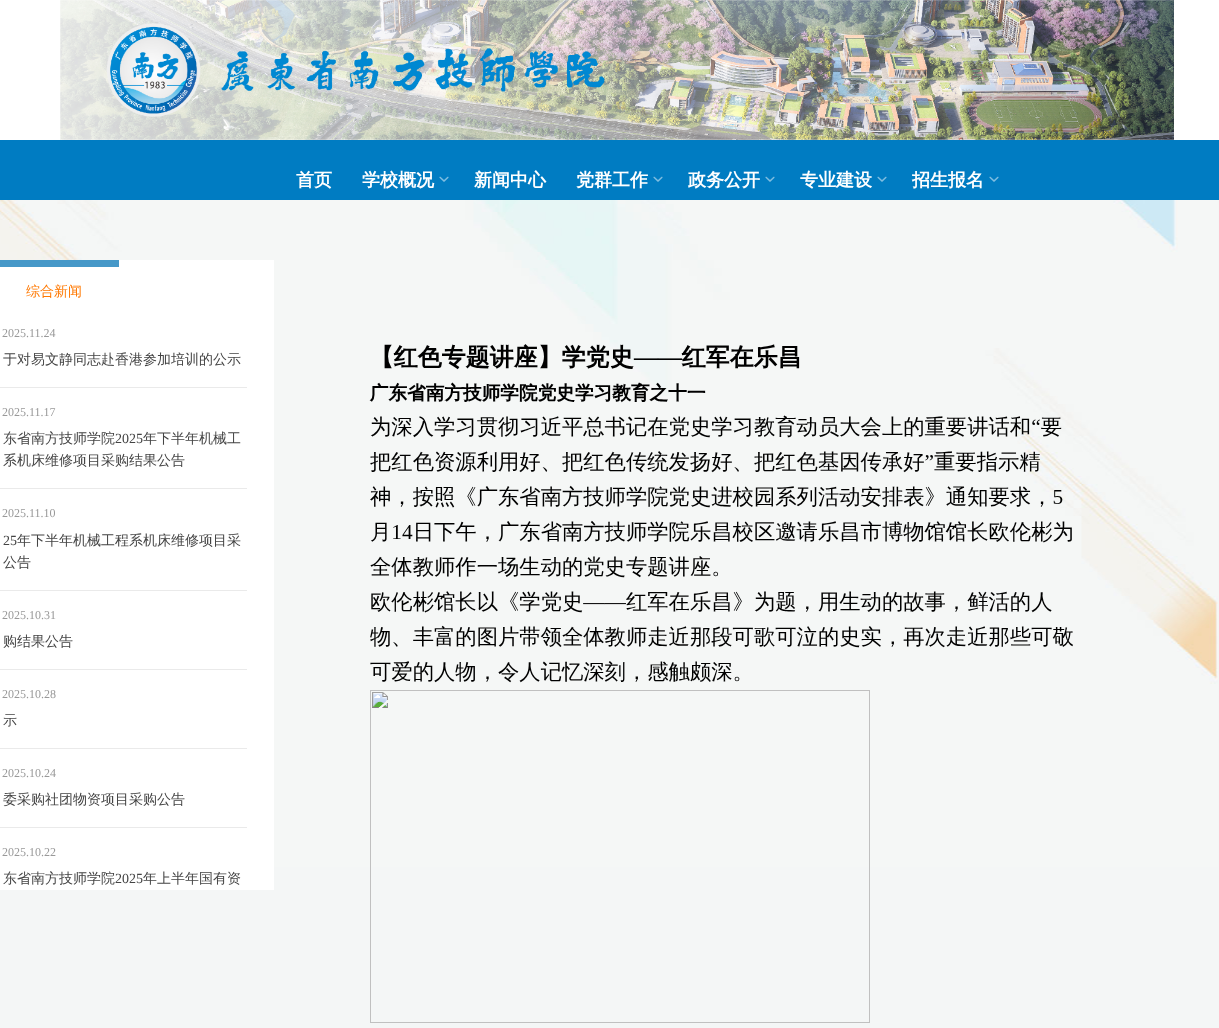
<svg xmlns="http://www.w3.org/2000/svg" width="1219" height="1028">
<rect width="100%" height="100%" fill="#f4f6f6"/>
<rect width="1219" height="140" fill="#fff"/>
<image x="60" y="0" width="1114" height="140" href="media/1.png"/>
<rect y="140" width="1219" height="60" fill="#007cc2"/>
<text x="296" y="186" style="font-family:WenQuanYi Zen Hei;font-size:18px;font-weight:bold;fill:#fff">首页</text>
<text x="362" y="186" style="font-family:WenQuanYi Zen Hei;font-size:18px;font-weight:bold;fill:#fff">学校概况</text>
<image x="439" y="176" width="10" height="6" href="media/2.png"/>
<text x="474" y="186" style="font-family:WenQuanYi Zen Hei;font-size:18px;font-weight:bold;fill:#fff">新闻中心</text>
<text x="576" y="186" style="font-family:WenQuanYi Zen Hei;font-size:18px;font-weight:bold;fill:#fff">党群工作</text>
<image x="653" y="176" width="10" height="6" href="media/2.png"/>
<text x="688" y="186" style="font-family:WenQuanYi Zen Hei;font-size:18px;font-weight:bold;fill:#fff">政务公开</text>
<image x="765" y="176" width="10" height="6" href="media/2.png"/>
<text x="800" y="186" style="font-family:WenQuanYi Zen Hei;font-size:18px;font-weight:bold;fill:#fff">专业建设</text>
<image x="877" y="176" width="10" height="6" href="media/2.png"/>
<text x="912" y="186" style="font-family:WenQuanYi Zen Hei;font-size:18px;font-weight:bold;fill:#fff">招生报名</text>
<image x="989" y="176" width="10" height="6" href="media/2.png"/>
<image x="0" y="200" width="1218" height="667" href="media/3.png"/>
<rect y="260" width="274" height="630" fill="#fff"/>
<rect y="260" width="119" height="7" fill="#4698c8"/>
<text x="26" y="296" style="font-family:WenQuanYi Zen Hei;font-size:14px;font-weight:500;fill:#ff7800">综合新闻</text>
<rect y="387" width="247" height="1" fill="#eaeaea"/>
<text x="2" y="337" style="font-family:Liberation Serif;font-size:12px;fill:#999">2025.11.24</text>
<text x="3" y="364" style="font-family:WenQuanYi Zen Hei;font-size:14px;font-weight:500;fill:#444">于对易文静同志赴香港参加培训的公示</text>
<rect y="488" width="247" height="1" fill="#eaeaea"/>
<text x="2" y="416" style="font-family:Liberation Serif;font-size:12px;fill:#999">2025.11.17</text>
<text x="3" y="443" style="font-family:WenQuanYi Zen Hei;font-size:14px;font-weight:500;fill:#444">东省南方技师学院</text>
<text x="115" y="443" style="font-family:Liberation Serif;font-size:14px;fill:#444">2025</text>
<text x="143" y="443" style="font-family:WenQuanYi Zen Hei;font-size:14px;font-weight:500;fill:#444">年下半年机械工</text>
<text x="3" y="465" style="font-family:WenQuanYi Zen Hei;font-size:14px;font-weight:500;fill:#444">系机床维修项目采购结果公告</text>
<rect y="590" width="247" height="1" fill="#eaeaea"/>
<text x="2" y="517" style="font-family:Liberation Serif;font-size:12px;fill:#999">2025.11.10</text>
<text x="3" y="545" style="font-family:Liberation Serif;font-size:14px;fill:#444">25</text>
<text x="17" y="545" style="font-family:WenQuanYi Zen Hei;font-size:14px;font-weight:500;fill:#444">年下半年机械工程系机床维修项目采</text>
<text x="3" y="567" style="font-family:WenQuanYi Zen Hei;font-size:14px;font-weight:500;fill:#444">公告</text>
<rect y="669" width="247" height="1" fill="#eaeaea"/>
<text x="2" y="619" style="font-family:Liberation Serif;font-size:12px;fill:#999">2025.10.31</text>
<text x="3" y="646" style="font-family:WenQuanYi Zen Hei;font-size:14px;font-weight:500;fill:#444">购结果公告</text>
<rect y="748" width="247" height="1" fill="#eaeaea"/>
<text x="2" y="698" style="font-family:Liberation Serif;font-size:12px;fill:#999">2025.10.28</text>
<text x="3" y="725" style="font-family:WenQuanYi Zen Hei;font-size:14px;font-weight:500;fill:#444">示</text>
<rect y="827" width="247" height="1" fill="#eaeaea"/>
<text x="2" y="777" style="font-family:Liberation Serif;font-size:12px;fill:#999">2025.10.24</text>
<text x="3" y="804" style="font-family:WenQuanYi Zen Hei;font-size:14px;font-weight:500;fill:#444">委采购社团物资项目采购公告</text>
<text x="2" y="856" style="font-family:Liberation Serif;font-size:12px;fill:#999">2025.10.22</text>
<text x="3" y="883" style="font-family:WenQuanYi Zen Hei;font-size:14px;font-weight:500;fill:#444">东省南方技师学院</text>
<text x="115" y="883" style="font-family:Liberation Serif;font-size:14px;fill:#444">2025</text>
<text x="143" y="883" style="font-family:WenQuanYi Zen Hei;font-size:14px;font-weight:500;fill:#444">年上半年国有资</text>
<image x="369" y="344" width="704" height="679" href="media/4.png"/>
</svg>
